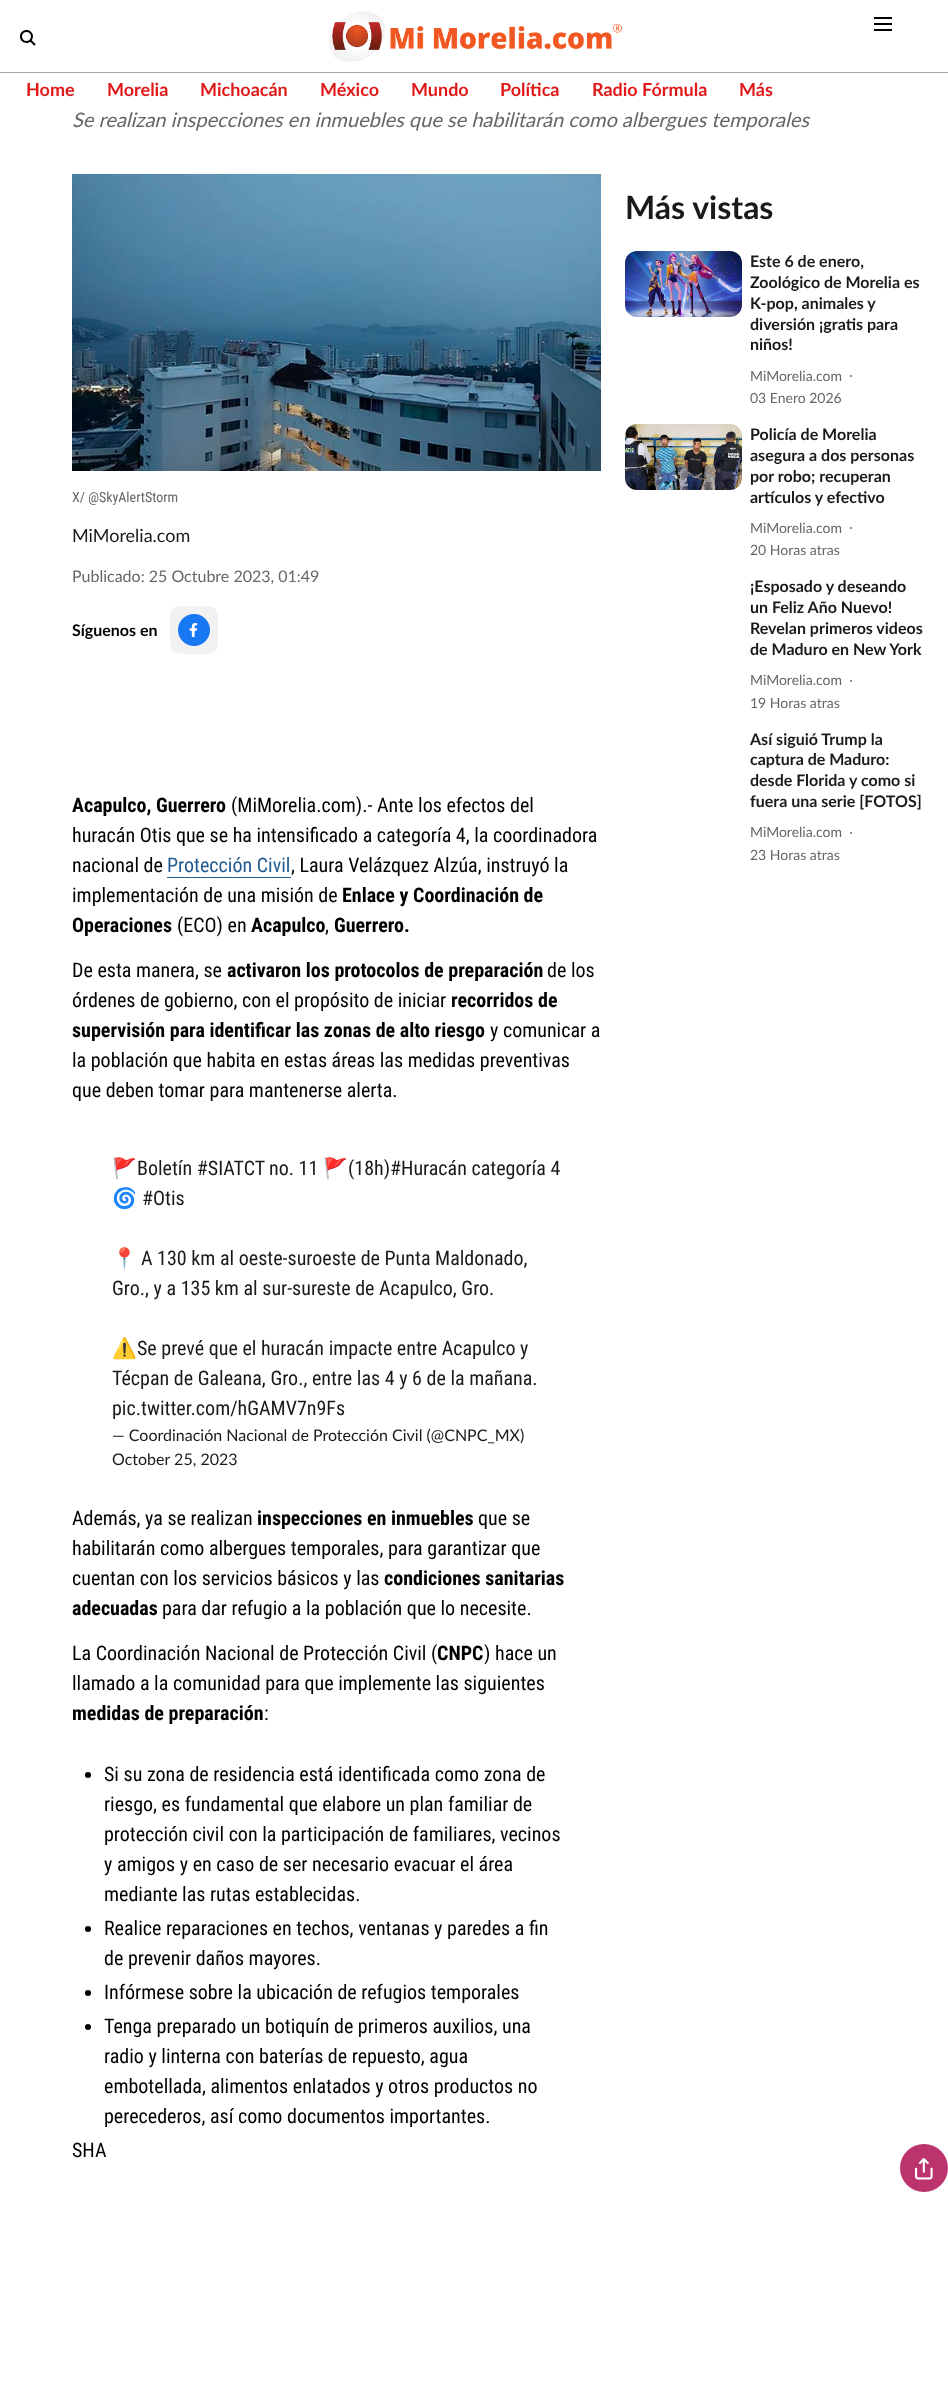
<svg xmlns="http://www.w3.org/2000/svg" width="948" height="2382">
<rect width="100%" height="100%" fill="#fff"/>
<rect y="72" width="948" height="1" fill="#a4a4a4"/>
<image x="329" y="11" width="293" height="51" href="media/1.png"/>
<image x="874" y="17" width="18" height="14" href="media/2.png"/>
<image x="19" y="30" width="17" height="16" href="media/3.png"/>
<text x="26" y="96" style="font-family:Lato;font-size:18px;font-weight:bold;fill:#e01818">Home</text>
<text x="107" y="96" style="font-family:Lato;font-size:18px;font-weight:bold;fill:#e01818">Morelia</text>
<text x="200" y="96" style="font-family:Lato;font-size:18px;font-weight:bold;fill:#e01818">Michoacán</text>
<text x="320" y="96" style="font-family:Lato;font-size:18px;font-weight:bold;fill:#e01818">México</text>
<text x="411" y="96" style="font-family:Lato;font-size:18px;font-weight:bold;fill:#e01818">Mundo</text>
<text x="500" y="96" style="font-family:Lato;font-size:18px;font-weight:bold;fill:#e01818">Política</text>
<text x="592" y="96" style="font-family:Lato;font-size:18px;font-weight:bold;fill:#e01818">Radio Fórmula</text>
<text x="739" y="96" style="font-family:Lato;font-size:18px;font-weight:bold;fill:#e01818">Más</text>
<text x="72" y="127" style="font-family:Lato;font-size:20px;font-style:italic;fill:#666">Se realizan inspecciones en inmuebles que se habilitarán como albergues temporales</text>
<image x="72" y="174" width="529" height="297" href="media/4.png"/>
<text x="625" y="219" style="font-family:Lato;font-size:32px;font-weight:bold;fill:#1a1a1a">Más vistas</text>
<image x="625" y="251" width="117" height="66" href="media/5.png"/>
<text x="750" y="267" style="font-family:Lato;font-size:16px;font-weight:bold;fill:#1a1a1a">Este 6 de enero,</text>
<text x="750" y="288" style="font-family:Lato;font-size:16px;font-weight:bold;fill:#1a1a1a">Zoológico de Morelia es</text>
<text x="750" y="309" style="font-family:Lato;font-size:16px;font-weight:bold;fill:#1a1a1a">K-pop, animales y</text>
<text x="750" y="330" style="font-family:Lato;font-size:16px;font-weight:bold;fill:#1a1a1a">diversión ¡gratis para</text>
<text x="750" y="350" style="font-family:Lato;font-size:16px;font-weight:bold;fill:#1a1a1a">niños!</text>
<text x="750" y="381" style="font-family:Lato;font-size:14px;fill:#666">MiMorelia.com</text>
<circle cx="851" cy="376" r="1" fill="#666"/>
<text x="750" y="403" style="font-family:Lato;font-size:14px;fill:#666">03 Enero 2026</text>
<image x="625" y="424" width="117" height="66" href="media/6.png"/>
<text x="750" y="440" style="font-family:Lato;font-size:16px;font-weight:bold;fill:#1a1a1a">Policía de Morelia</text>
<text x="750" y="461" style="font-family:Lato;font-size:16px;font-weight:bold;fill:#1a1a1a">asegura a dos personas</text>
<text x="750" y="482" style="font-family:Lato;font-size:16px;font-weight:bold;fill:#1a1a1a">por robo; recuperan</text>
<text x="750" y="503" style="font-family:Lato;font-size:16px;font-weight:bold;fill:#1a1a1a">artículos y efectivo</text>
<text x="750" y="533" style="font-family:Lato;font-size:14px;fill:#666">MiMorelia.com</text>
<circle cx="851" cy="528" r="1" fill="#666"/>
<text x="750" y="555" style="font-family:Lato;font-size:14px;fill:#666">20 Horas atras</text>
<text x="750" y="592" style="font-family:Lato;font-size:16px;font-weight:bold;fill:#1a1a1a">¡Esposado y deseando</text>
<text x="750" y="613" style="font-family:Lato;font-size:16px;font-weight:bold;fill:#1a1a1a">un Feliz Año Nuevo!</text>
<text x="750" y="634" style="font-family:Lato;font-size:16px;font-weight:bold;fill:#1a1a1a">Revelan primeros videos</text>
<text x="750" y="655" style="font-family:Lato;font-size:16px;font-weight:bold;fill:#1a1a1a">de Maduro en New York</text>
<text x="750" y="685" style="font-family:Lato;font-size:14px;fill:#666">MiMorelia.com</text>
<circle cx="851" cy="681" r="1" fill="#666"/>
<text x="750" y="708" style="font-family:Lato;font-size:14px;fill:#666">19 Horas atras</text>
<text x="750" y="745" style="font-family:Lato;font-size:16px;font-weight:bold;fill:#1a1a1a">Así siguió Trump la</text>
<text x="750" y="765" style="font-family:Lato;font-size:16px;font-weight:bold;fill:#1a1a1a">captura de Maduro:</text>
<text x="750" y="786" style="font-family:Lato;font-size:16px;font-weight:bold;fill:#1a1a1a">desde Florida y como si</text>
<text x="750" y="807" style="font-family:Lato;font-size:16px;font-weight:bold;fill:#1a1a1a">fuera una serie [FOTOS]</text>
<text x="750" y="837" style="font-family:Lato;font-size:14px;fill:#666">MiMorelia.com</text>
<circle cx="851" cy="833" r="1" fill="#666"/>
<text x="750" y="860" style="font-family:Lato;font-size:14px;fill:#666">23 Horas atras</text>
<text x="72" y="502" style="font-family:Roboto Condensed;font-size:14px;fill:#666">X/ @SkyAlertStorm</text>
<text x="72" y="542" style="font-family:Lato;font-size:18px;fill:#1a1a1a">MiMorelia.com</text>
<text x="72" y="582" style="font-family:Lato;font-size:16px;fill:#666">Publicado: 25 Octubre 2023, 01:49</text>
<text x="72" y="636" style="font-family:Lato;font-size:16px;font-weight:bold;fill:#000">Síguenos en</text>
<rect x="170" y="606" width="48" height="48" rx="10" fill="#f2f2f2"/>
<image x="178" y="614" width="32" height="32" href="media/7.png"/>
<circle cx="924" cy="2168" r="24" fill="#bc346d"/>
<image x="915" y="2158" width="18" height="22" href="media/8.png"/>
<text x="72" y="812" style="font-family:Roboto Condensed;font-size:20px;font-weight:bold;fill:#000">Acapulco, Guerrero</text>
<text x="231" y="812" style="font-family:Roboto Condensed;font-size:20px;fill:#000">(MiMorelia.com).- Ante los efectos del</text>
<text x="72" y="842" style="font-family:Roboto Condensed;font-size:20px;fill:#000">huracán Otis que se ha intensificado a categoría 4, la coordinadora</text>
<text x="72" y="872" style="font-family:Roboto Condensed;font-size:20px;fill:#000">nacional de</text>
<text x="167" y="872" style="font-family:Roboto Condensed;font-size:20px;fill:#215b91">Protección Civil</text>
<rect x="167" y="877" width="124" height="1" fill="#215b91"/>
<text x="291" y="872" style="font-family:Roboto Condensed;font-size:20px;fill:#000">, Laura Velázquez Alzúa, instruyó la</text>
<text x="72" y="902" style="font-family:Roboto Condensed;font-size:20px;fill:#000">implementación de una misión de</text>
<text x="342" y="902" style="font-family:Roboto Condensed;font-size:20px;font-weight:bold;fill:#000">Enlace y Coordinación de</text>
<text x="72" y="932" style="font-family:Roboto Condensed;font-size:20px;font-weight:bold;fill:#000">Operaciones</text>
<text x="177" y="932" style="font-family:Roboto Condensed;font-size:20px;fill:#000">(ECO) en</text>
<text x="251" y="932" style="font-family:Roboto Condensed;font-size:20px;font-weight:bold;fill:#000">Acapulco</text>
<text x="325" y="932" style="font-family:Roboto Condensed;font-size:20px;fill:#000">,</text>
<text x="334" y="932" style="font-family:Roboto Condensed;font-size:20px;font-weight:bold;fill:#000">Guerrero.</text>
<text x="72" y="977" style="font-family:Roboto Condensed;font-size:20px;fill:#000">De esta manera, se</text>
<text x="227" y="977" style="font-family:Roboto Condensed;font-size:20px;font-weight:bold;fill:#000">activaron los protocolos de preparación</text>
<text x="547" y="977" style="font-family:Roboto Condensed;font-size:20px;fill:#000">de los</text>
<text x="72" y="1007" style="font-family:Roboto Condensed;font-size:20px;fill:#000">órdenes de gobierno, con el propósito de iniciar</text>
<text x="451" y="1007" style="font-family:Roboto Condensed;font-size:20px;font-weight:bold;fill:#000">recorridos de</text>
<text x="72" y="1037" style="font-family:Roboto Condensed;font-size:20px;font-weight:bold;fill:#000">supervisión para identificar las zonas de alto riesgo</text>
<text x="490" y="1037" style="font-family:Roboto Condensed;font-size:20px;fill:#000">y comunicar a</text>
<text x="72" y="1067" style="font-family:Roboto Condensed;font-size:20px;fill:#000">la población que habita en estas áreas las medidas preventivas</text>
<text x="72" y="1097" style="font-family:Roboto Condensed;font-size:20px;fill:#000">que deben tomar para mantenerse alerta.</text>
<text x="112" y="1175" style="font-family:Noto Color Emoji;font-size:20px;fill:#1a1a1a">🚩</text>
<text x="137" y="1175" style="font-family:Roboto Condensed;font-size:20px;fill:#1a1a1a">Boletín #SIATCT</text>
<text x="269" y="1175" style="font-family:Roboto Condensed;font-size:20px;fill:#1a1a1a">no. 11</text>
<text x="323" y="1175" style="font-family:Noto Color Emoji;font-size:20px;fill:#1a1a1a">🚩</text>
<text x="348" y="1175" style="font-family:Roboto Condensed;font-size:20px;fill:#1a1a1a">(18h)#Huracán categoría 4</text>
<text x="112" y="1205" style="font-family:Noto Color Emoji;font-size:20px;fill:#1a1a1a">🌀</text>
<text x="142" y="1205" style="font-family:Roboto Condensed;font-size:20px;fill:#1a1a1a">#Otis</text>
<text x="112" y="1265" style="font-family:Noto Color Emoji;font-size:20px;fill:#1a1a1a">📍</text>
<text x="141" y="1265" style="font-family:Roboto Condensed;font-size:20px;fill:#1a1a1a">A 130 km al oeste-suroeste de Punta Maldonado,</text>
<text x="112" y="1295" style="font-family:Roboto Condensed;font-size:20px;fill:#1a1a1a">Gro., y a 135 km al sur-sureste de Acapulco, Gro.</text>
<text x="112" y="1355" style="font-family:Noto Color Emoji;font-size:20px;fill:#1a1a1a">⚠️</text>
<text x="137" y="1355" style="font-family:Roboto Condensed;font-size:20px;fill:#1a1a1a">Se prevé que el huracán impacte entre Acapulco y</text>
<text x="112" y="1385" style="font-family:Roboto Condensed;font-size:20px;fill:#1a1a1a">Técpan de Galeana, Gro., entre las 4 y 6 de la mañana.</text>
<text x="112" y="1415" style="font-family:Roboto Condensed;font-size:20px;fill:#1a1a1a">pic.twitter.com/hGAMV7n9Fs</text>
<text x="112" y="1441" style="font-family:Lato;font-size:16px;fill:#1a1a1a">— Coordinación Nacional de Protección Civil (@CNPC_MX)</text>
<text x="112" y="1465" style="font-family:Lato;font-size:16px;fill:#1a1a1a">October 25, 2023</text>
<text x="72" y="1525" style="font-family:Roboto Condensed;font-size:20px;fill:#000">Además, ya se realizan</text>
<text x="257" y="1525" style="font-family:Roboto Condensed;font-size:20px;font-weight:bold;fill:#000">inspecciones en inmuebles</text>
<text x="478" y="1525" style="font-family:Roboto Condensed;font-size:20px;fill:#000">que se</text>
<text x="72" y="1555" style="font-family:Roboto Condensed;font-size:20px;fill:#000">habilitarán como albergues temporales, para garantizar que</text>
<text x="72" y="1585" style="font-family:Roboto Condensed;font-size:20px;fill:#000">cuentan con los servicios básicos y las</text>
<text x="384" y="1585" style="font-family:Roboto Condensed;font-size:20px;font-weight:bold;fill:#000">condiciones sanitarias</text>
<text x="72" y="1615" style="font-family:Roboto Condensed;font-size:20px;font-weight:bold;fill:#000">adecuadas</text>
<text x="162" y="1615" style="font-family:Roboto Condensed;font-size:20px;fill:#000">para dar refugio a la población que lo necesite.</text>
<text x="72" y="1660" style="font-family:Roboto Condensed;font-size:20px;fill:#000">La Coordinación Nacional de Protección Civil (</text>
<text x="437" y="1660" style="font-family:Roboto Condensed;font-size:20px;font-weight:bold;fill:#000">CNPC</text>
<text x="484" y="1660" style="font-family:Roboto Condensed;font-size:20px;fill:#000">) hace un</text>
<text x="72" y="1690" style="font-family:Roboto Condensed;font-size:20px;fill:#000">llamado a la comunidad para que implemente las siguientes</text>
<text x="72" y="1720" style="font-family:Roboto Condensed;font-size:20px;font-weight:bold;fill:#000">medidas de preparación</text>
<text x="264" y="1720" style="font-family:Roboto Condensed;font-size:20px;fill:#000">:</text>
<circle cx="88" cy="1775" r="3" fill="#000"/>
<text x="104" y="1781" style="font-family:Roboto Condensed;font-size:20px;fill:#000">Si su zona de residencia está identificada como zona de</text>
<text x="104" y="1811" style="font-family:Roboto Condensed;font-size:20px;fill:#000">riesgo, es fundamental que elabore un plan familiar de</text>
<text x="104" y="1841" style="font-family:Roboto Condensed;font-size:20px;fill:#000">protección civil con la participación de familiares, vecinos</text>
<text x="104" y="1871" style="font-family:Roboto Condensed;font-size:20px;fill:#000">y amigos y en caso de ser necesario evacuar el área</text>
<text x="104" y="1901" style="font-family:Roboto Condensed;font-size:20px;fill:#000">mediante las rutas establecidas.</text>
<circle cx="88" cy="1929" r="3" fill="#000"/>
<text x="104" y="1935" style="font-family:Roboto Condensed;font-size:20px;fill:#000">Realice reparaciones en techos, ventanas y paredes a fin</text>
<text x="104" y="1965" style="font-family:Roboto Condensed;font-size:20px;fill:#000">de prevenir daños mayores.</text>
<circle cx="88" cy="1993" r="3" fill="#000"/>
<text x="104" y="1999" style="font-family:Roboto Condensed;font-size:20px;fill:#000">Infórmese sobre la ubicación de refugios temporales</text>
<circle cx="88" cy="2027" r="3" fill="#000"/>
<text x="104" y="2033" style="font-family:Roboto Condensed;font-size:20px;fill:#000">Tenga preparado un botiquín de primeros auxilios, una</text>
<text x="104" y="2063" style="font-family:Roboto Condensed;font-size:20px;fill:#000">radio y linterna con baterías de repuesto, agua</text>
<text x="104" y="2093" style="font-family:Roboto Condensed;font-size:20px;fill:#000">embotellada, alimentos enlatados y otros productos no</text>
<text x="104" y="2123" style="font-family:Roboto Condensed;font-size:20px;fill:#000">perecederos, así como documentos importantes.</text>
<text x="72" y="2157" style="font-family:Roboto Condensed;font-size:20px;fill:#000">SHA</text>
</svg>
